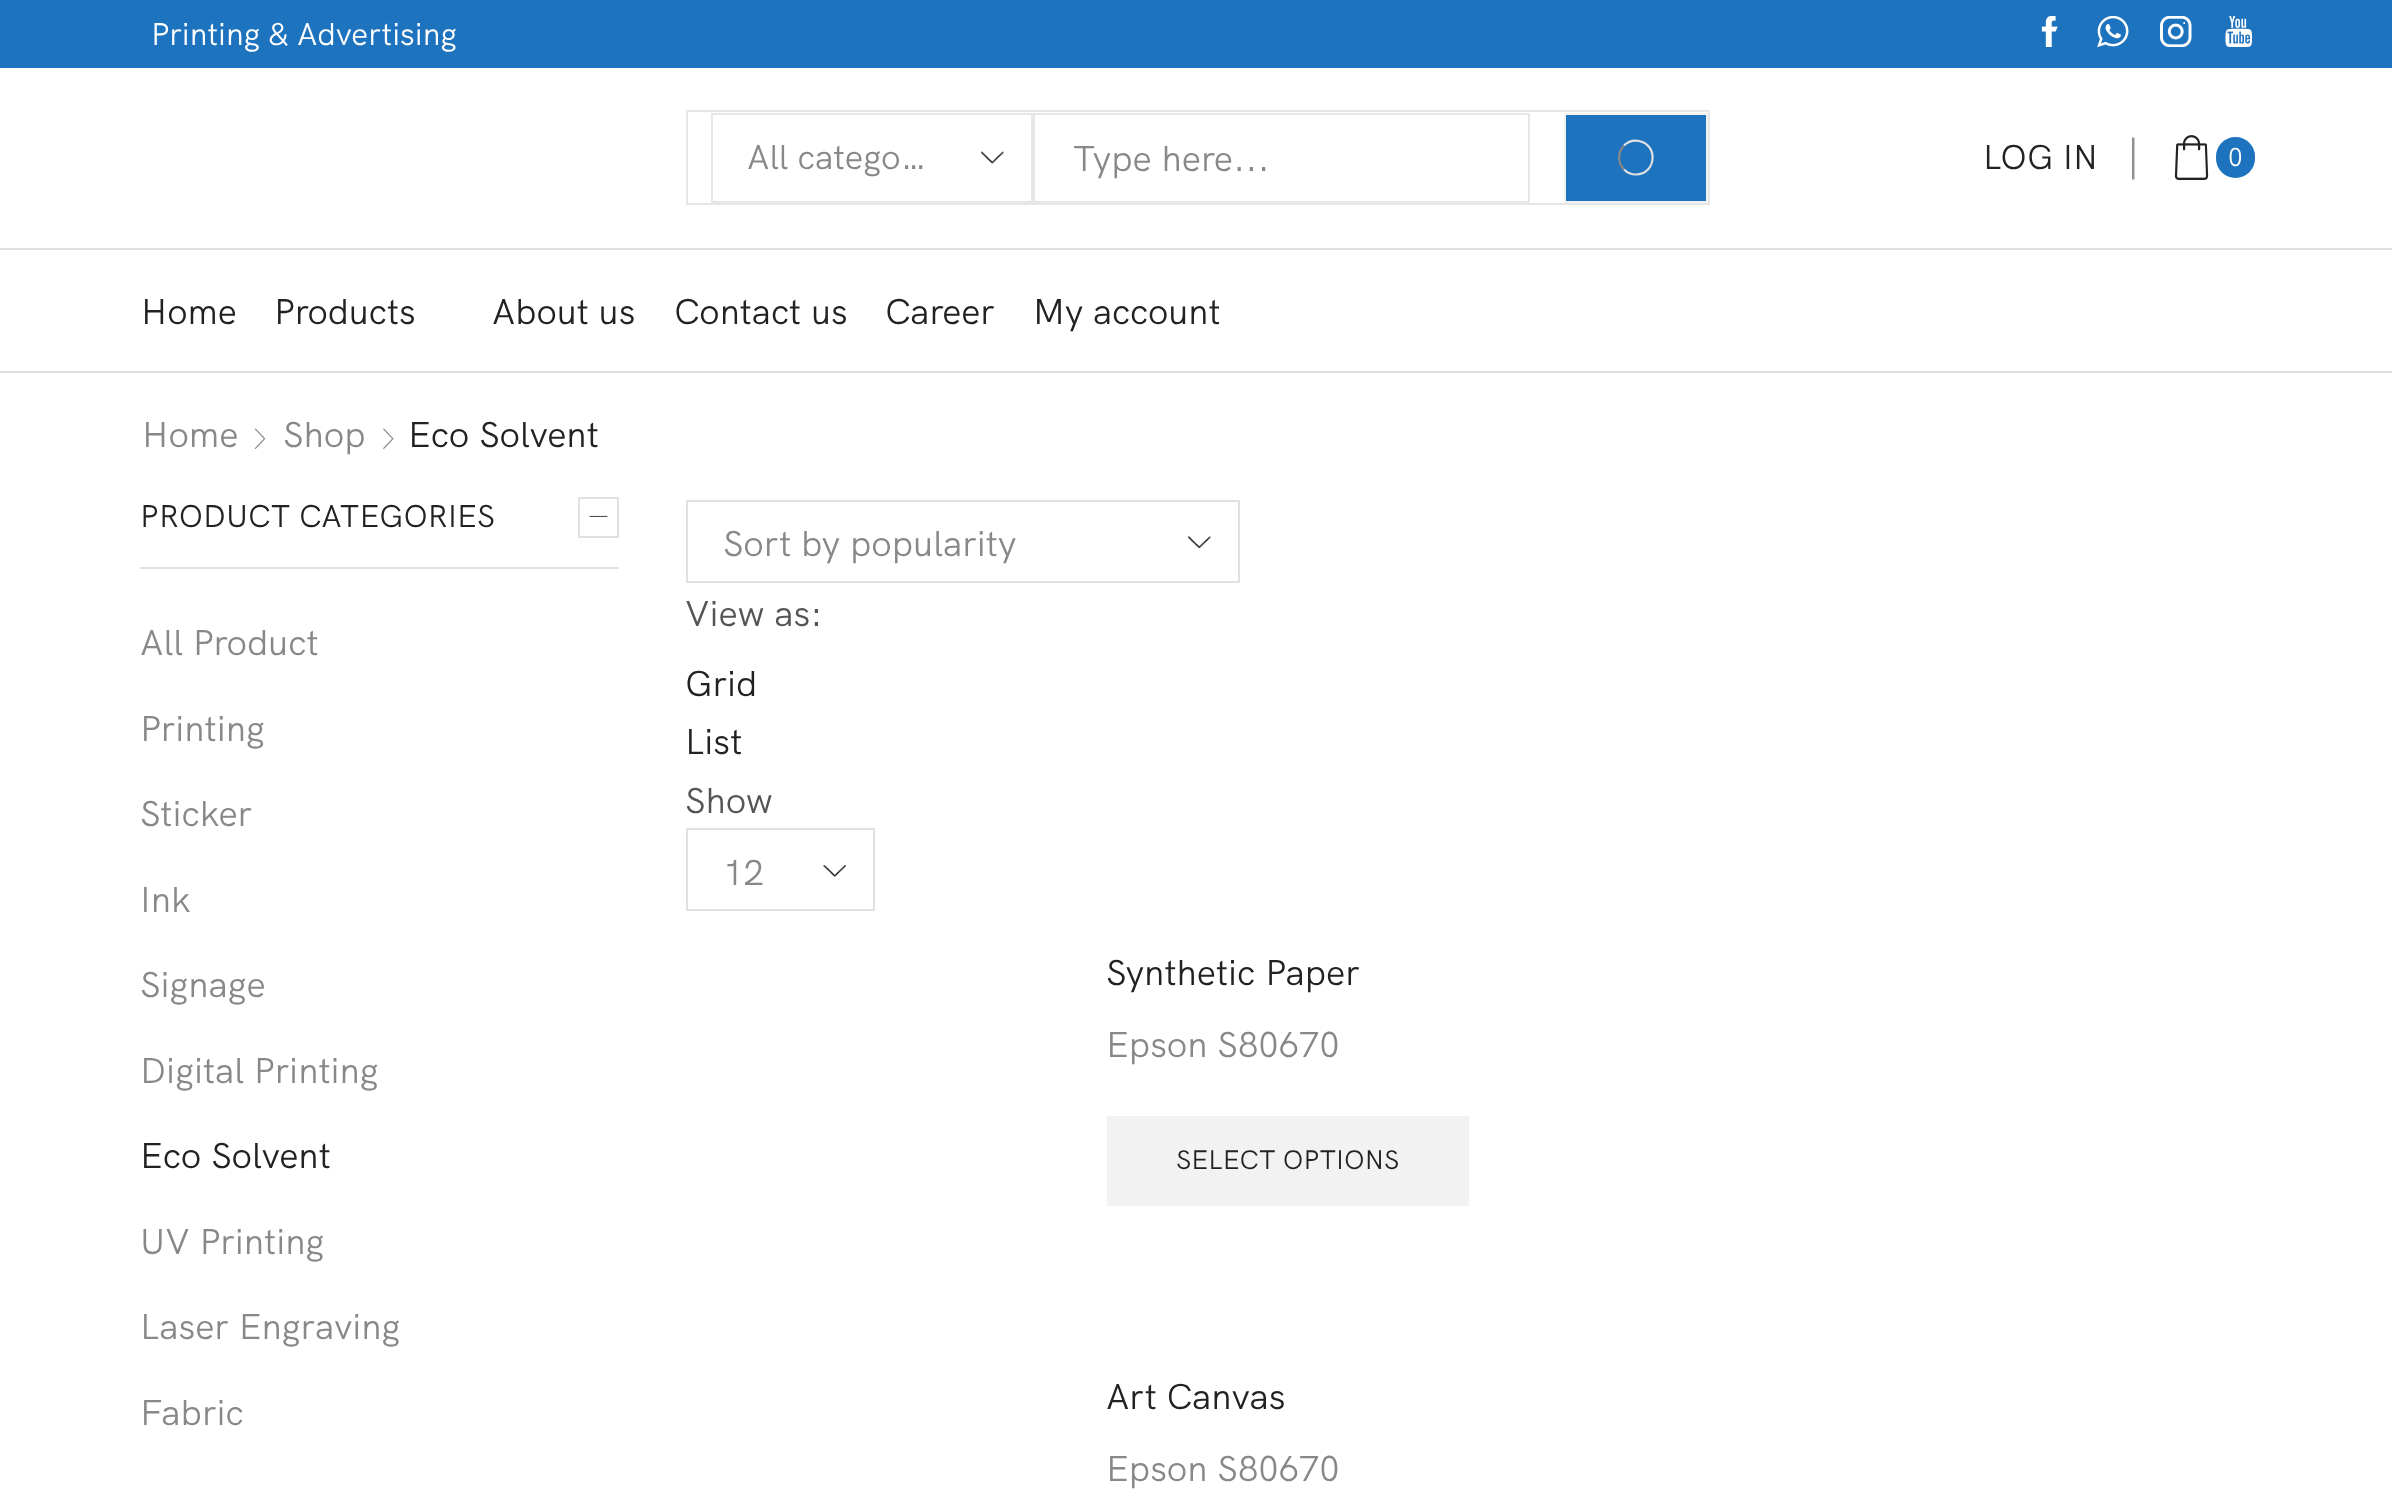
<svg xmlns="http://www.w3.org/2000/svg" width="2392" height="1495">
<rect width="100%" height="100%" fill="#fff"/>
<rect width="2392" height="68" fill="#1e73be"/>
<text x="151" y="45" style="font-family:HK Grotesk;font-size:31.5px;fill:#fff">Printing &amp; Advertising</text>
<image x="2041" y="16" width="17" height="31" href="media/1.png"/>
<image x="2097" y="16" width="32" height="31" href="media/2.png"/>
<image x="2160" y="16" width="32" height="31" href="media/3.png"/>
<image x="2225" y="16" width="28" height="31" href="media/4.png"/>
<rect y="248" width="2392" height="2" fill="#e1e1e1"/>
<rect x="687" y="111" width="1022" height="93" fill="none" stroke="#e6e6e6" stroke-width="2"/>
<image x="981" y="151" width="23" height="13" href="media/5.png"/>
<rect x="712" y="114" width="320" height="88" fill="none" stroke="#e6e6e6" stroke-width="2"/>
<text x="747" y="169" style="font-family:HK Grotesk;font-size:34.5px;fill:#888">All catego…</text>
<rect x="1034" y="114" width="495" height="88" fill="none" stroke="#e6e6e6" stroke-width="2"/>
<text x="1073" y="171" style="font-family:HK Grotesk;font-size:36px;fill:#888">Type here...</text>
<rect x="1565" y="114" width="142" height="88" fill="#1e73be" stroke="#f2f2f2" stroke-width="2"/>
<path d="M1624 145.5c4-4 9.5-5.5 15-4.5c20 4 17 33.5-3 33.5c-4.5 0-9-2-12-5" fill="none" stroke="#e1e1e1" stroke-width="2.2"/>
<path d="M1624 169.5c-6.5-6.5-6.5-17.5 0-24" fill="none" stroke="#888" stroke-width="2.2"/>
<image x="1564" y="140" width="1" height="34" href="media/6.png"/>
<text x="1983" y="169" style="font-family:HK Grotesk;font-size:34.5px;fill:#222">LOG IN</text>
<text x="2121" y="169" style="font-family:Liberation Serif;font-size:34.5px;fill:#919191">│</text>
<image x="2174" y="135" width="35" height="45" href="media/7.png"/>
<rect x="2216" y="137" width="39" height="41" rx="19.5" fill="#1e73be"/>
<text x="2228" y="166" style="font-family:HK Grotesk;font-size:26px;fill:#fff">0</text>
<rect y="371" width="2392" height="2" fill="#e1e1e1"/>
<text x="141" y="324" style="font-family:HK Grotesk;font-size:35.75px;fill:#222">Home</text>
<text x="274" y="324" style="font-family:HK Grotesk;font-size:35.75px;fill:#222">Products</text>
<text x="492" y="324" style="font-family:HK Grotesk;font-size:35.75px;fill:#222">About us</text>
<text x="674" y="324" style="font-family:HK Grotesk;font-size:35.75px;fill:#222">Contact us</text>
<text x="885" y="324" style="font-family:HK Grotesk;font-size:35.75px;fill:#222">Career</text>
<text x="1033" y="324" style="font-family:HK Grotesk;font-size:35.75px;fill:#222">My account</text>
<text x="142" y="447" style="font-family:HK Grotesk;font-size:36px;fill:#888">Home</text>
<image x="254" y="428" width="12" height="21" href="media/8.png"/>
<text x="283" y="447" style="font-family:HK Grotesk;font-size:36px;fill:#888">Shop</text>
<image x="383" y="428" width="11" height="21" href="media/9.png"/>
<text x="408" y="447" style="font-family:HK Grotesk;font-size:36px;fill:#222">Eco Solvent</text>
<rect x="140" y="567" width="479" height="2" fill="#e1e1e1"/>
<text x="140" y="527" style="font-family:HK Grotesk;font-size:31.5px;fill:#222">PRODUCT CATEGORIES</text>
<rect x="579" y="498" width="39" height="39" fill="none" stroke="#e1e1e1" stroke-width="2"/>
<image x="589" y="515" width="19" height="2" href="media/10.png"/>
<text x="140" y="655" style="font-family:HK Grotesk;font-size:36px;fill:#888">All Product</text>
<text x="140" y="741" style="font-family:HK Grotesk;font-size:36px;fill:#888">Printing</text>
<text x="140" y="826" style="font-family:HK Grotesk;font-size:36px;fill:#888">Sticker</text>
<text x="140" y="912" style="font-family:HK Grotesk;font-size:36px;fill:#888">Ink</text>
<text x="140" y="997" style="font-family:HK Grotesk;font-size:36px;fill:#888">Signage</text>
<text x="140" y="1083" style="font-family:HK Grotesk;font-size:36px;fill:#888">Digital Printing</text>
<text x="140" y="1168" style="font-family:HK Grotesk;font-size:36px;fill:#222">Eco Solvent</text>
<text x="140" y="1254" style="font-family:HK Grotesk;font-size:36px;fill:#888">UV Printing</text>
<text x="140" y="1339" style="font-family:HK Grotesk;font-size:36px;fill:#888">Laser Engraving</text>
<text x="140" y="1425" style="font-family:HK Grotesk;font-size:36px;fill:#888">Fabric</text>
<image x="1188" y="536" width="23" height="13" href="media/11.png"/>
<rect x="687" y="501" width="552" height="81" fill="none" stroke="#e1e1e1" stroke-width="2"/>
<text x="723" y="556" style="font-family:HK Grotesk;font-size:36px;fill:#888">Sort by popularity</text>
<text x="685" y="626" style="font-family:HK Grotesk;font-size:36px;fill:#555">View as:</text>
<text x="685" y="696" style="font-family:HK Grotesk;font-size:36px;fill:#222">Grid</text>
<text x="685" y="754" style="font-family:HK Grotesk;font-size:36px;fill:#222">List</text>
<text x="685" y="813" style="font-family:HK Grotesk;font-size:36px;fill:#555">Show</text>
<image x="823" y="865" width="23" height="12" href="media/12.png"/>
<rect x="687" y="829" width="187" height="81" fill="none" stroke="#e1e1e1" stroke-width="2"/>
<text x="723" y="885" style="font-family:HK Grotesk;font-size:36px;fill:#888">12</text>
<text x="1106" y="985" style="font-family:HK Grotesk;font-size:36px;fill:#222">Synthetic Paper</text>
<text x="1106" y="1057" style="font-family:HK Grotesk;font-size:36px;fill:#888">Epson S80670</text>
<rect x="1107" y="1116" width="362" height="90" fill="#f2f2f2"/>
<text x="1176" y="1169" style="font-family:HK Grotesk;font-size:26.75px;fill:#222">SELECT OPTIONS</text>
<text x="1106" y="1409" style="font-family:HK Grotesk;font-size:36px;fill:#222">Art Canvas</text>
<text x="1106" y="1481" style="font-family:HK Grotesk;font-size:36px;fill:#888">Epson S80670</text>
</svg>
